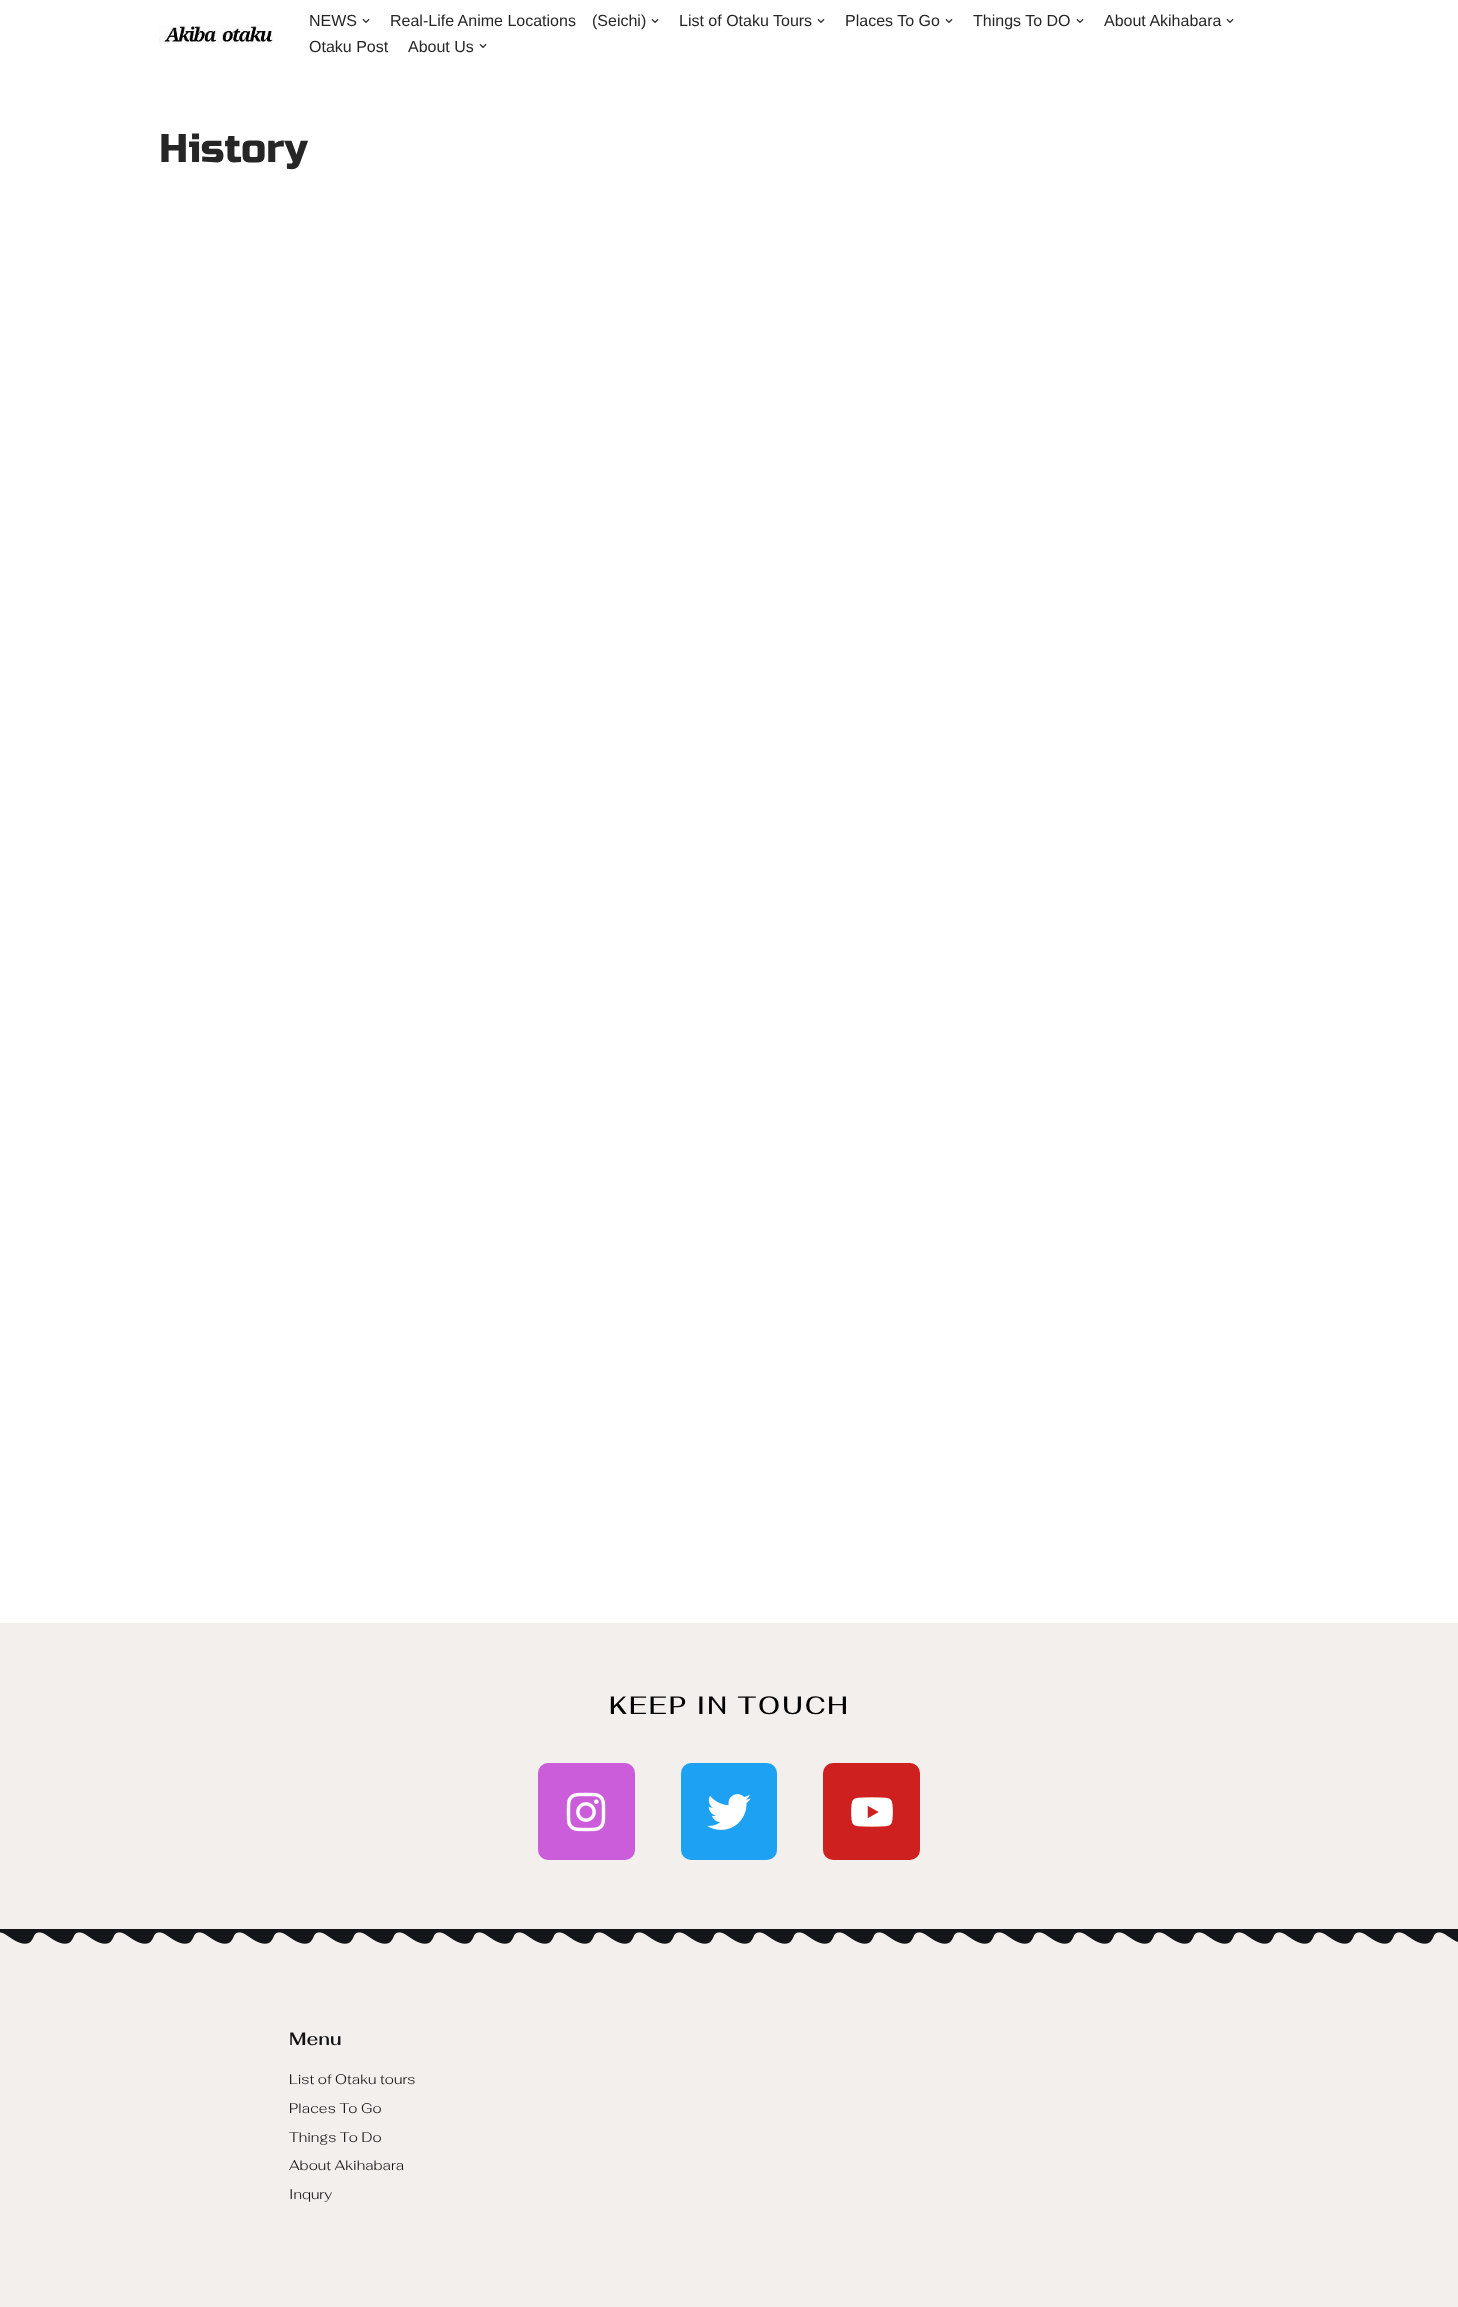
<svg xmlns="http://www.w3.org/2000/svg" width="1458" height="2307">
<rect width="100%" height="100%" fill="#fff"/>
<image x="159" y="25" width="114" height="19" href="media/1.png"/>
<text x="309" y="26" style="font-family:Liberation Sans;font-size:16px;fill:#272626">NEWS</text>
<image x="362" y="19" width="8" height="4" href="media/2.png"/>
<text x="390" y="26" style="font-family:Liberation Sans;font-size:16px;fill:#272626">Real-Life Anime Locations</text>
<text x="592" y="26" style="font-family:Liberation Sans;font-size:16px;fill:#272626">(Seichi)</text>
<image x="651" y="19" width="8" height="4" href="media/2.png"/>
<text x="679" y="26" style="font-family:Liberation Sans;font-size:16px;fill:#272626">List of Otaku Tours</text>
<image x="817" y="19" width="8" height="4" href="media/2.png"/>
<text x="845" y="26" style="font-family:Liberation Sans;font-size:16px;fill:#272626">Places To Go</text>
<image x="945" y="19" width="8" height="4" href="media/2.png"/>
<text x="973" y="26" style="font-family:Liberation Sans;font-size:16px;fill:#272626">Things To DO</text>
<image x="1076" y="19" width="8" height="4" href="media/2.png"/>
<text x="1104" y="26" style="font-family:Liberation Sans;font-size:16px;fill:#272626">About Akihabara</text>
<image x="1226" y="19" width="8" height="4" href="media/2.png"/>
<text x="309" y="52" style="font-family:Liberation Sans;font-size:16px;fill:#272626">Otaku Post</text>
<text x="408" y="52" style="font-family:Liberation Sans;font-size:16px;fill:#272626">About Us</text>
<image x="479" y="44" width="8" height="4" href="media/2.png"/>
<text x="159" y="162" style="font-family:Russo One;font-size:40px;fill:#272626">History</text>
<rect y="1623" width="1458" height="306" fill="#f2efec"/>
<text x="609" y="1714" style="font-family:Fahkwang;font-size:25px;font-weight:500;letter-spacing:2px;fill:#000">KEEP IN TOUCH</text>
<rect x="538" y="1763" width="97" height="97" rx="10" fill="#cb5dda"/>
<image x="566" y="1792" width="40" height="40" href="media/3.png"/>
<rect x="681" y="1763" width="96" height="97" rx="10" fill="#1da1f2"/>
<image x="707" y="1794" width="44" height="36" href="media/4.png"/>
<rect x="823" y="1763" width="97" height="97" rx="10" fill="#cd201f"/>
<image x="851" y="1797" width="42" height="30" href="media/5.png"/>
<rect y="1932" width="1458" height="375" fill="#f2efec"/>
<image x="0" y="1929" width="1458" height="15" href="media/6.png"/>
<text x="289" y="2045" style="font-family:Fahkwang;font-size:18px;font-weight:600;fill:#111">Menu</text>
<text x="289" y="2084" style="font-family:Fahkwang;font-size:14px;font-weight:300;fill:#111">List of Otaku tours</text>
<text x="289" y="2113" style="font-family:Fahkwang;font-size:14px;font-weight:300;fill:#111">Places To Go</text>
<text x="289" y="2142" style="font-family:Fahkwang;font-size:14px;font-weight:300;fill:#111">Things To Do</text>
<text x="289" y="2170" style="font-family:Fahkwang;font-size:14px;font-weight:300;fill:#111">About Akihabara</text>
<text x="289" y="2199" style="font-family:Fahkwang;font-size:14px;font-weight:300;fill:#111">Inqury</text>
</svg>
